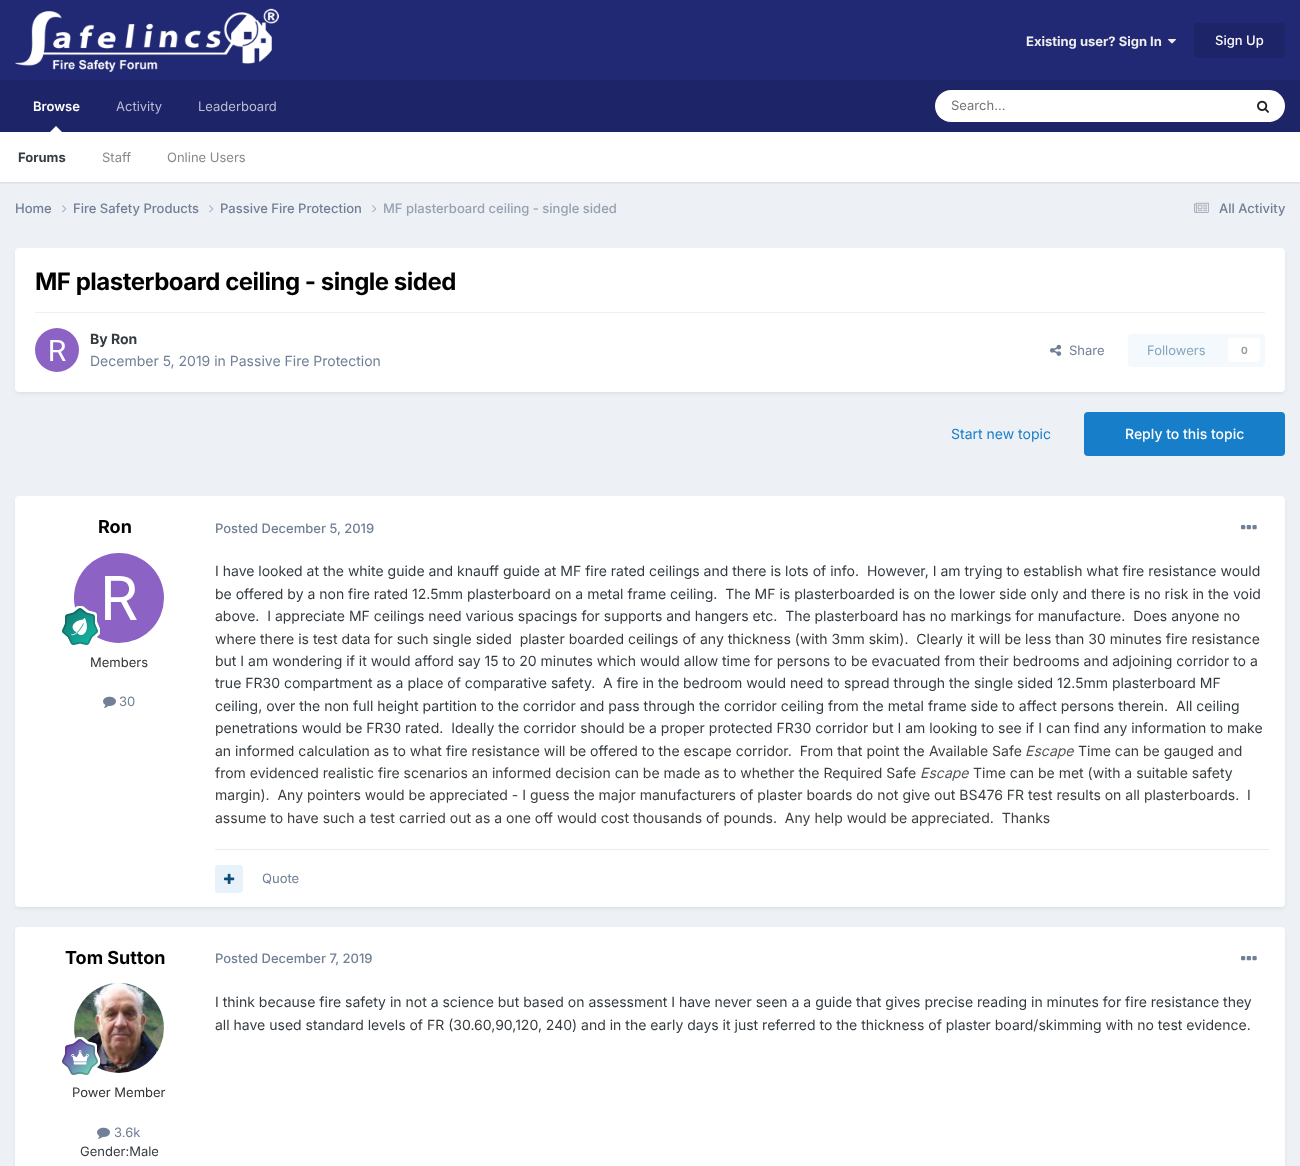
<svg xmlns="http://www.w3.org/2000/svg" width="1300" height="1166">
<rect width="100%" height="100%" fill="#edf0f4"/>
<rect width="1300" height="80" fill="#212974"/>
<image x="15" y="8" width="264" height="64" href="media/1.png"/>
<text x="1026" y="46" style="font-family:Inter;font-size:13px;font-weight:bold;fill:#eee">Existing user? Sign In</text>
<image x="1168" y="39" width="8" height="5" href="media/2.png"/>
<rect x="1194" y="23" width="91" height="35" rx="4" fill="#1d2467"/>
<text x="1215" y="45" style="font-family:Inter;font-size:13px;font-weight:500;fill:#fff">Sign Up</text>
<rect y="80" width="1300" height="52" fill="#1d2467"/>
<text x="33" y="111" style="font-family:Inter;font-size:13px;font-weight:600;fill:#fff">Browse</text>
<rect y="133" width="1300" height="50" fill="#0000001a" filter="blur(1px)"/>
<path d="M62 132h-12l6-6z" fill="#fff"/>
<rect y="132" width="1300" height="50" fill="#fff"/>
<text x="18" y="162" style="font-family:Inter;font-size:13px;font-weight:bold;fill:#353c41">Forums</text>
<text x="102" y="162" style="font-family:Inter;font-size:13px;fill:#868a8d">Staff</text>
<text x="167" y="162" style="font-family:Inter;font-size:13px;fill:#868a8d">Online Users</text>
<text x="116" y="111" style="font-family:Inter;font-size:13px;fill:#bbbdd1">Activity</text>
<text x="198" y="111" style="font-family:Inter;font-size:13px;fill:#bbbdd1">Leaderboard</text>
<rect x="935" y="90" width="350" height="32" rx="16" fill="#fff"/>
<text x="951" y="110" style="font-family:Inter;font-size:13px;fill:#757575">Search...</text>
<image x="1257" y="100" width="12" height="13" href="media/3.png"/>
<text x="15" y="213" style="font-family:Inter;font-size:13px;font-weight:500;fill:#718096">Home</text>
<image x="62" y="205" width="5" height="8" href="media/4.png"/>
<text x="73" y="213" style="font-family:Inter;font-size:13px;font-weight:500;fill:#718096">Fire Safety Products</text>
<image x="209" y="205" width="5" height="8" href="media/4.png"/>
<text x="220" y="213" style="font-family:Inter;font-size:13px;font-weight:500;fill:#718096">Passive Fire Protection</text>
<image x="372" y="205" width="5" height="8" href="media/4.png"/>
<text x="383" y="213" style="font-family:Inter;font-size:13px;font-weight:500;fill:#96a2b2">MF plasterboard ceiling - single sided</text>
<image x="1194" y="202" width="15" height="11" href="media/5.png"/>
<text x="1219" y="213" style="font-family:Inter;font-size:13px;font-weight:500;fill:#718096">All Activity</text>
<rect x="16" y="251" width="1268" height="142" rx="3" fill="#1d24671a" filter="blur(2px)"/>
<rect x="15" y="248" width="1270" height="144" rx="4" fill="#fff"/>
<text x="35" y="290" style="font-family:Inter;font-size:24px;font-weight:bold;letter-spacing:-0.5px;fill:#000">MF plasterboard ceiling - single sided</text>
<rect x="35" y="312" width="1230" height="1" fill="#efeff0"/>
<image x="35" y="328" width="44" height="44" href="media/6.png"/>
<text x="90" y="344" style="font-family:Inter;font-size:14px;font-weight:bold;fill:#353c41">By Ron</text>
<text x="90" y="366" style="font-family:Inter;font-size:14px;fill:#718096">December 5, 2019 in Passive Fire Protection</text>
<image x="1050" y="344" width="12" height="12" href="media/7.png"/>
<text x="1069" y="355" style="font-family:Inter;font-size:13px;fill:#718096">Share</text>
<rect x="1128" y="334" width="137" height="33" rx="4" fill="#f4f9fd"/>
<text x="1147" y="355" style="font-family:Inter;font-size:13px;fill:#87a6bc">Followers</text>
<rect x="1228" y="338" width="32" height="24" rx="4" fill="#fff"/>
<text x="1241" y="354" style="font-family:Inter;font-size:10px;font-weight:bold;fill:#9a9ea0">0</text>
<text x="951" y="439" style="font-family:Inter;font-size:14px;fill:#177ec9">Start new topic</text>
<rect x="1084" y="412" width="201" height="44" rx="4" fill="#177ec9"/>
<text x="1125" y="439" style="font-family:Inter;font-size:14px;font-weight:500;fill:#fff">Reply to this topic</text>
<rect x="16" y="499" width="1268" height="409" rx="3" fill="#1d24671a" filter="blur(2px)"/>
<rect x="15" y="496" width="1270" height="411" rx="4" fill="#fff"/>
<text x="98" y="533" style="font-family:Inter;font-size:18px;font-weight:bold;fill:#000">Ron</text>
<image x="74" y="553" width="90" height="90" href="media/8.png"/>
<image x="62" y="606" width="38" height="39" href="media/9.png"/>
<text x="90" y="667" style="font-family:Inter;font-size:13px;fill:#333">Members</text>
<image x="103" y="696" width="13" height="12" href="media/10.png"/>
<text x="119" y="706" style="font-family:Inter;font-size:13px;fill:#718096">30</text>
<text x="215" y="533" style="font-family:Inter;font-size:13px;font-weight:500;fill:#718096">Posted December 5, 2019</text>
<image x="1241" y="525" width="16" height="5" href="media/11.png"/>
<text x="215" y="576" style="font-family:Inter;font-size:14px;fill:#353c41" xml:space="preserve">I have looked at the white guide and knauff guide at MF fire rated ceilings and there is lots of info.  However, I am trying to establish what fire resistance would</text>
<text x="215" y="599" style="font-family:Inter;font-size:14px;fill:#353c41" xml:space="preserve">be offered by a non fire rated 12.5mm plasterboard on a metal frame ceiling.  The MF is plasterboarded is on the lower side only and there is no risk in the void</text>
<text x="215" y="621" style="font-family:Inter;font-size:14px;fill:#353c41" xml:space="preserve">above.  I appreciate MF ceilings need various spacings for supports and hangers etc.  The plasterboard has no markings for manufacture.  Does anyone no</text>
<text x="215" y="644" style="font-family:Inter;font-size:14px;fill:#353c41" xml:space="preserve">where there is test data for such single sided  plaster boarded ceilings of any thickness (with 3mm skim).  Clearly it will be less than 30 minutes fire resistance</text>
<text x="215" y="666" style="font-family:Inter;font-size:14px;fill:#353c41">but I am wondering if it would afford say 15 to 20 minutes which would allow time for persons to be evacuated from their bedrooms and adjoining corridor to a</text>
<text x="215" y="688" style="font-family:Inter;font-size:14px;fill:#353c41" xml:space="preserve">true FR30 compartment as a place of comparative safety.  A fire in the bedroom would need to spread through the single sided 12.5mm plasterboard MF</text>
<text x="215" y="711" style="font-family:Inter;font-size:14px;fill:#353c41" xml:space="preserve">ceiling, over the non full height partition to the corridor and pass through the corridor ceiling from the metal frame side to affect persons therein.  All ceiling</text>
<text x="215" y="733" style="font-family:Inter;font-size:14px;fill:#353c41" xml:space="preserve">penetrations would be FR30 rated.  Ideally the corridor should be a proper protected FR30 corridor but I am looking to see if I can find any information to make</text>
<text x="215" y="756" style="font-family:Inter;font-size:14px;fill:#353c41" xml:space="preserve">an informed calculation as to what fire resistance will be offered to the escape corridor.  From that point the</text>
<text x="929" y="756" style="font-family:Inter;font-size:14px;fill:#3c4043">Available Safe</text>
<text x="1025" y="756" style="font-family:Inter;font-size:14px;font-style:italic;fill:#52565a">Escape</text>
<text x="1078" y="756" style="font-family:Inter;font-size:14px;fill:#3c4043">Time can be gauged and</text>
<rect x="1074" y="742" width="1" height="17" fill="#fff"/>
<text x="215" y="778" style="font-family:Inter;font-size:14px;fill:#3c4043">from evidenced realistic fire scenarios an informed decision can be made as to whether the Required Safe</text>
<text x="920" y="778" style="font-family:Inter;font-size:14px;font-style:italic;fill:#52565a">Escape</text>
<text x="973" y="778" style="font-family:Inter;font-size:14px;fill:#3c4043">Time can be met (with a suitable safety</text>
<rect x="969" y="764" width="1" height="17" fill="#fff"/>
<text x="215" y="800" style="font-family:Inter;font-size:14px;fill:#3c4043" xml:space="preserve">margin).  Any pointers would be appreciated - I guess the major manufacturers of plaster boards do not give out BS476 FR test results on all plasterboards.  I</text>
<text x="215" y="823" style="font-family:Inter;font-size:14px;fill:#3c4043" xml:space="preserve">assume to have such a test carried out as a one off would cost thousands of pounds.  Any help would be appreciated.  Thanks</text>
<rect x="215" y="849" width="1054" height="1" fill="#ebecec"/>
<rect x="215" y="865" width="28" height="28" rx="4" fill="#e8f2fa"/>
<image x="224" y="873" width="11" height="11" href="media/12.png"/>
<text x="262" y="883" style="font-family:Inter;font-size:13px;fill:#718096">Quote</text>
<rect x="16" y="930" width="1268" height="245" rx="3" fill="#1d24671a" filter="blur(2px)"/>
<rect x="15" y="927" width="1270" height="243" rx="4" fill="#fff"/>
<text x="65" y="964" style="font-family:Inter;font-size:18px;font-weight:bold;fill:#000">Tom Sutton</text>
<image x="74" y="983" width="90" height="90" href="media/13.png"/>
<image x="62" y="1037" width="38" height="38" href="media/14.png"/>
<text x="72" y="1097" style="font-family:Inter;font-size:13px;fill:#333">Power Member</text>
<image x="97" y="1127" width="13" height="12" href="media/10.png"/>
<text x="114" y="1137" style="font-family:Inter;font-size:13px;fill:#718096">3.6k</text>
<text x="80" y="1156" style="font-family:Inter;font-size:13px;fill:#353c41">Gender:Male</text>
<text x="215" y="963" style="font-family:Inter;font-size:13px;font-weight:500;fill:#718096">Posted December 7, 2019</text>
<image x="1241" y="956" width="16" height="5" href="media/11.png"/>
<text x="215" y="1007" style="font-family:Inter;font-size:14px;fill:#353c41">I think because fire safety in not a science but based on assessment I have never seen a a guide that gives precise reading in minutes for fire resistance they</text>
<text x="215" y="1030" style="font-family:Inter;font-size:14px;fill:#353c41">all have used standard levels of FR (30.60,90,120, 240) and in the early days it just referred to the thickness of plaster board/skimming with no test evidence.</text>
</svg>
